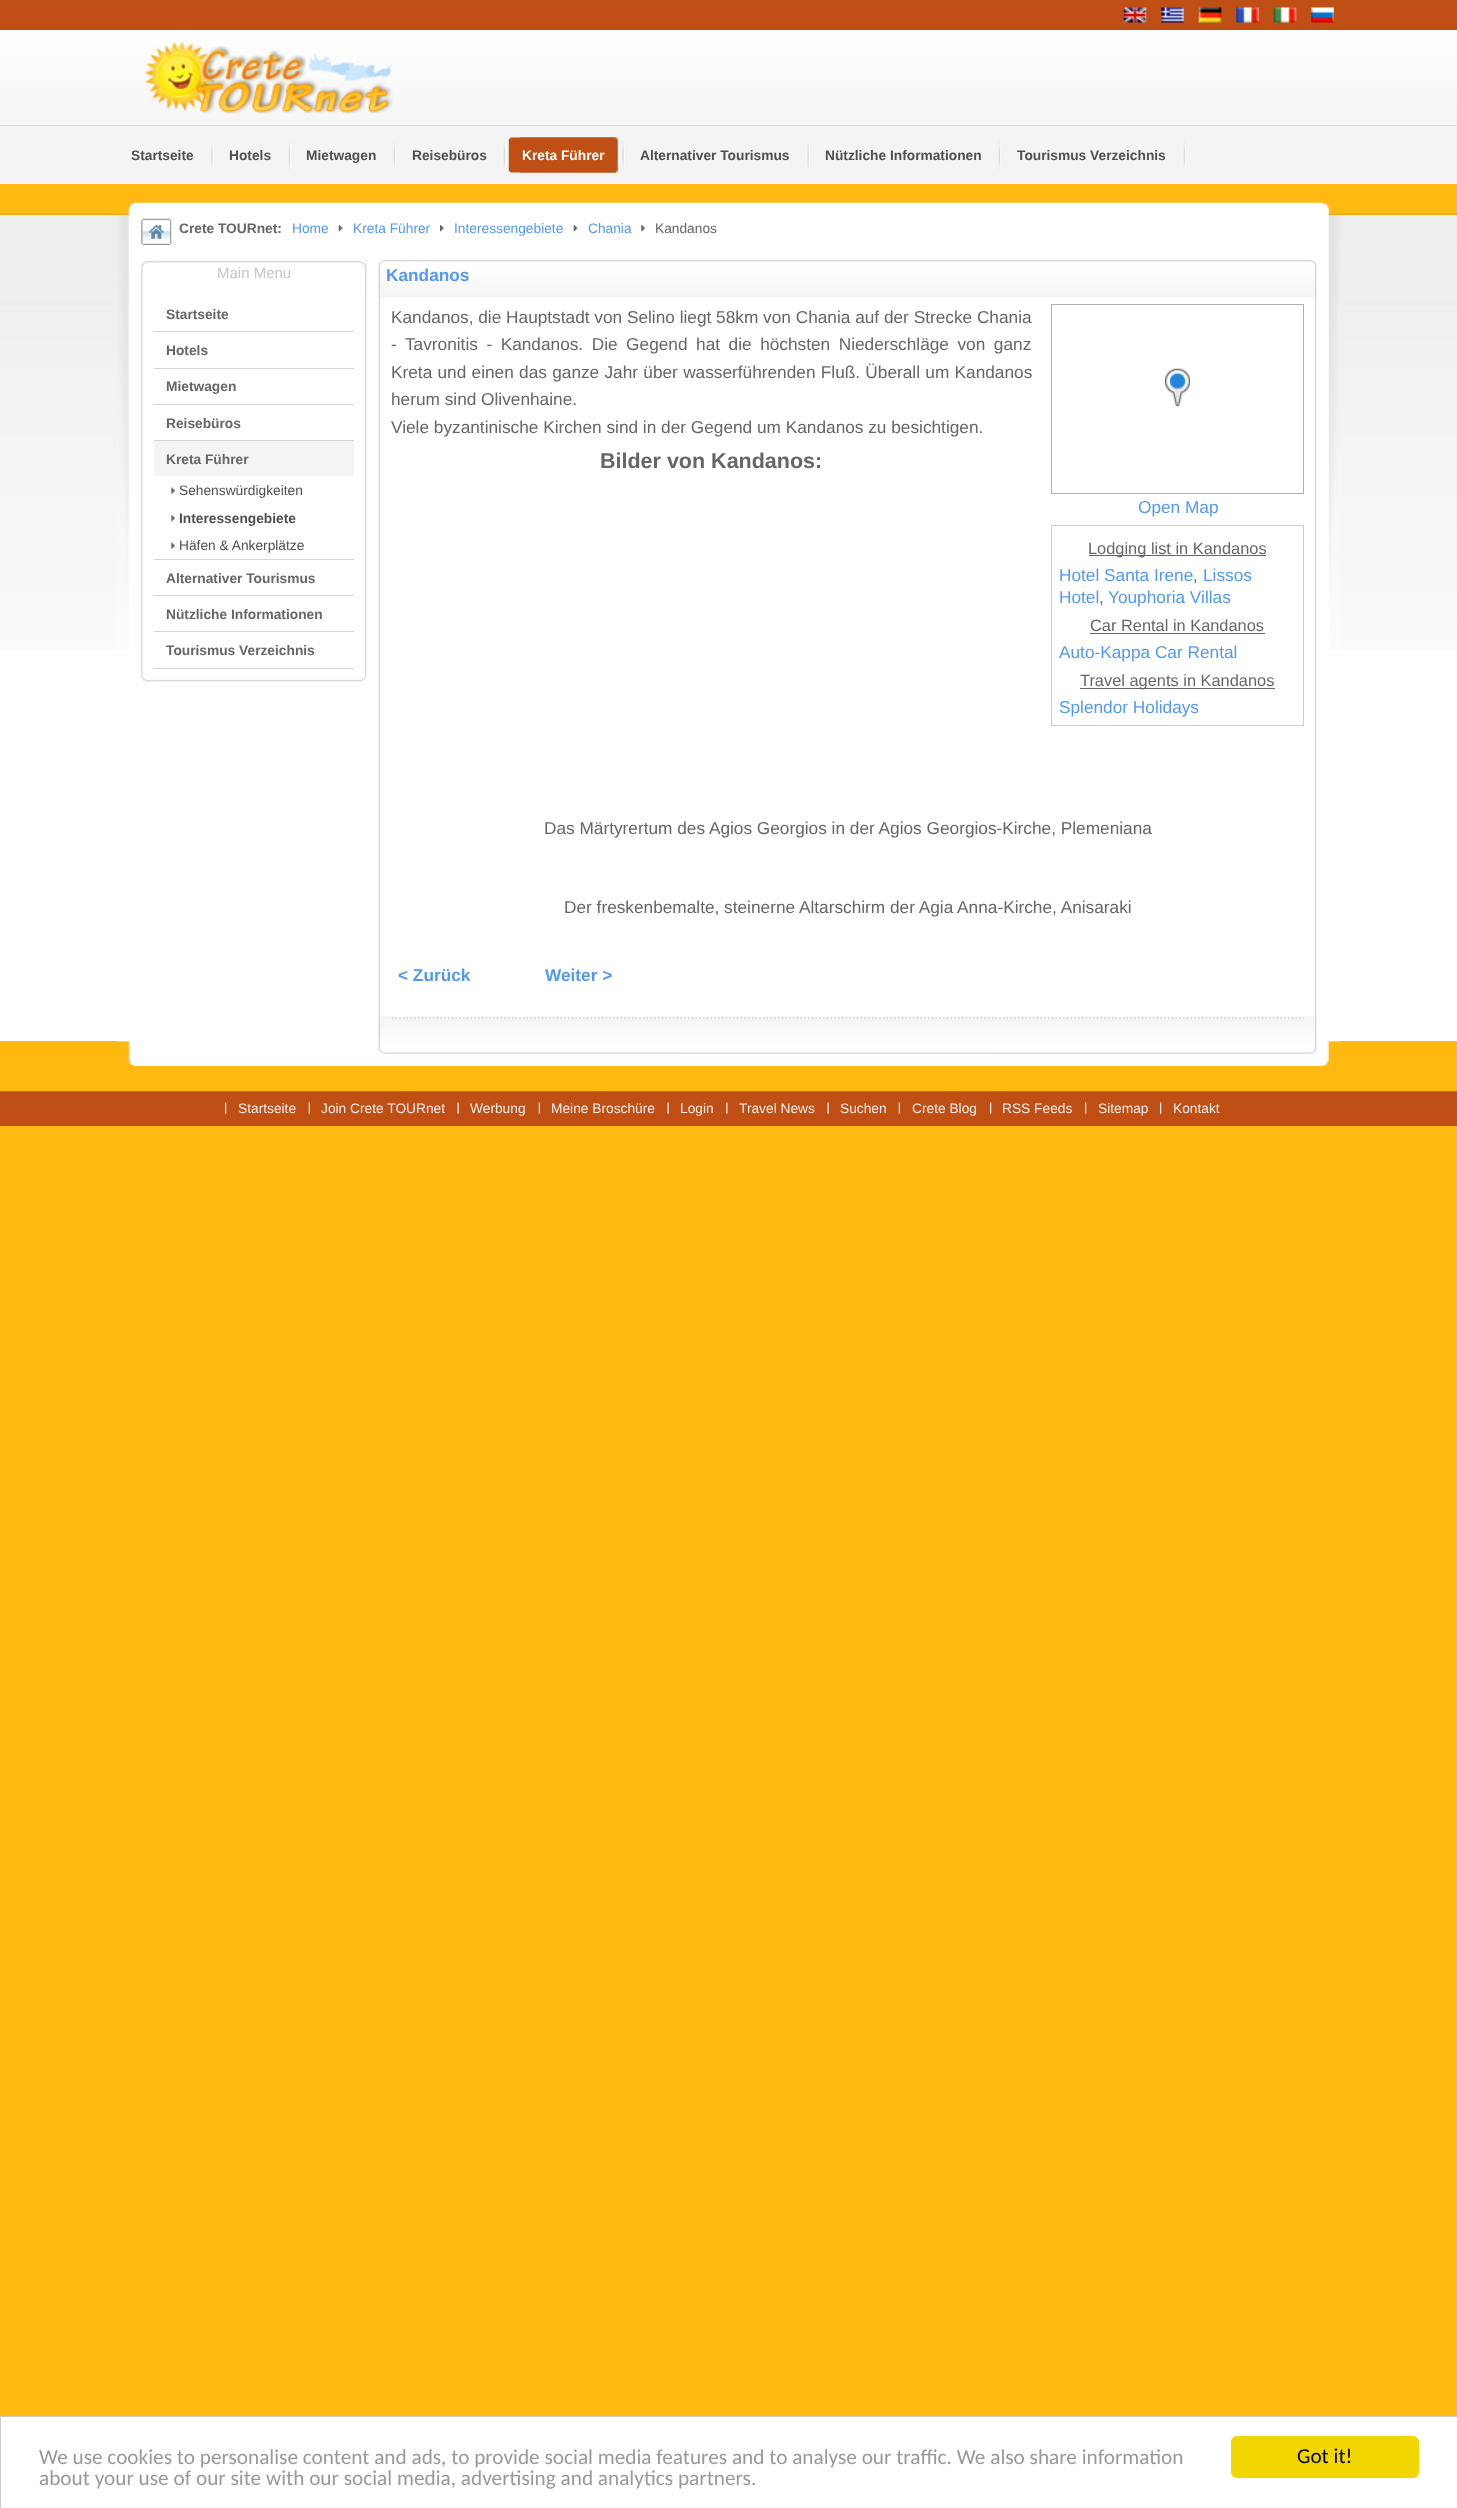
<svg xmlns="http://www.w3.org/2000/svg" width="1457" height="2508">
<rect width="100%" height="100%" fill="#ffb911"/>
<rect width="1457" height="30" fill="#bf4f14"/>
<image x="1123" y="7" width="24" height="16" href="media/1.png"/>
<image x="1161" y="7" width="23" height="16" href="media/2.png"/>
<image x="1198" y="7" width="24" height="16" href="media/3.png"/>
<image x="1236" y="7" width="23" height="16" href="media/4.png"/>
<image x="1273" y="7" width="24" height="16" href="media/5.png"/>
<image x="1311" y="7" width="23" height="16" href="media/6.png"/>
<image x="0" y="30" width="1457" height="94" href="media/7.png"/>
<rect y="124" width="1457" height="1" fill="#fff"/>
<image x="144" y="41" width="249" height="73" href="media/8.png"/>
<rect y="126" width="1457" height="58" fill="#f4f4f4"/>
<rect y="125" width="1457" height="1" fill="#d5d5d5"/>
<image x="211" y="142" width="3" height="28" href="media/9.png"/>
<text x="131" y="160" style="font-family:Liberation Sans;font-size:13.75px;font-weight:bold;fill:#4f4f4f">Startseite</text>
<image x="288" y="141" width="3" height="29" href="media/10.png"/>
<text x="229" y="160" style="font-family:Liberation Sans;font-size:13.75px;font-weight:bold;fill:#4f4f4f">Hotels</text>
<image x="393" y="141" width="3" height="29" href="media/10.png"/>
<text x="306" y="160" style="font-family:Liberation Sans;font-size:13.75px;font-weight:bold;fill:#4f4f4f">Mietwagen</text>
<image x="503" y="141" width="3" height="29" href="media/10.png"/>
<text x="412" y="160" style="font-family:Liberation Sans;font-size:13.75px;font-weight:bold;fill:#4f4f4f">Reisebüros</text>
<image x="622" y="142" width="3" height="27" href="media/11.png"/>
<image x="508" y="137" width="110" height="36" href="media/12.png"/>
<image x="520" y="137" width="98" height="36" href="media/13.png"/>
<text x="522" y="160" style="font-family:Liberation Sans;font-size:13.75px;font-weight:bold;fill:#fff">Kreta Führer</text>
<image x="807" y="142" width="3" height="27" href="media/11.png"/>
<text x="640" y="160" style="font-family:Liberation Sans;font-size:13.75px;font-weight:bold;fill:#4f4f4f">Alternativer Tourismus</text>
<image x="998" y="141" width="3" height="29" href="media/10.png"/>
<text x="825" y="160" style="font-family:Liberation Sans;font-size:13.75px;font-weight:bold;fill:#4f4f4f">Nützliche Informationen</text>
<image x="1183" y="141" width="3" height="29" href="media/10.png"/>
<text x="1017" y="160" style="font-family:Liberation Sans;font-size:13.75px;font-weight:bold;fill:#4f4f4f">Tourismus Verzeichnis</text>
<rect y="650" width="1457" height="391" fill="#fff"/>
<image x="0" y="203" width="1457" height="447" href="media/14.png"/>
<image x="116" y="202" width="1225" height="448" href="media/15.png"/>
<image x="116" y="1041" width="1226" height="26" href="media/16.png"/>
<image x="141" y="218" width="31" height="27" href="media/17.png"/>
<text x="179" y="233" style="font-family:Liberation Sans;font-size:13.75px;font-weight:bold;fill:#666">Crete TOURnet:</text>
<text x="292" y="233" style="font-family:Liberation Sans;font-size:13.75px;fill:#59e">Home</text>
<image x="338" y="225" width="5" height="7" href="media/18.png"/>
<text x="353" y="233" style="font-family:Liberation Sans;font-size:13.75px;fill:#59e">Kreta Führer</text>
<image x="440" y="225" width="4" height="7" href="media/19.png"/>
<text x="454" y="233" style="font-family:Liberation Sans;font-size:13.75px;fill:#59e">Interessengebiete</text>
<image x="573" y="225" width="5" height="7" href="media/18.png"/>
<text x="588" y="233" style="font-family:Liberation Sans;font-size:13.75px;fill:#59e">Chania</text>
<image x="641" y="225" width="4" height="7" href="media/20.png"/>
<text x="655" y="233" style="font-family:Liberation Sans;font-size:13.75px;fill:#666">Kandanos</text>
<image x="141" y="260" width="226" height="422" href="media/21.png"/>
<image x="141" y="261" width="13" height="421" href="media/22.png"/>
<image x="141" y="261" width="226" height="41" href="media/23.png"/>
<image x="141" y="261" width="13" height="40" href="media/24.png"/>
<text x="217" y="278" style="font-family:Liberation Sans;font-size:15px;fill:#c6c6c6">Main Menu</text>
<rect x="154" y="331" width="200" height="1" fill="#d5d5d5"/>
<text x="166" y="319" style="font-family:Liberation Sans;font-size:13.75px;font-weight:bold;fill:#666">Startseite</text>
<rect x="154" y="368" width="200" height="1" fill="#d5d5d5"/>
<text x="166" y="355" style="font-family:Liberation Sans;font-size:13.75px;font-weight:bold;fill:#666">Hotels</text>
<rect x="154" y="404" width="200" height="1" fill="#d5d5d5"/>
<text x="166" y="391" style="font-family:Liberation Sans;font-size:13.75px;font-weight:bold;fill:#666">Mietwagen</text>
<rect x="154" y="440" width="200" height="1" fill="#d5d5d5"/>
<text x="166" y="428" style="font-family:Liberation Sans;font-size:13.75px;font-weight:bold;fill:#666">Reisebüros</text>
<rect x="154" y="559" width="200" height="1" fill="#d5d5d5"/>
<rect x="154" y="441" width="200" height="35" fill="#f4f4f4"/>
<text x="166" y="464" style="font-family:Liberation Sans;font-size:13.75px;font-weight:bold;fill:#666">Kreta Führer</text>
<image x="171" y="487" width="4" height="7" href="media/25.png"/>
<text x="179" y="495" style="font-family:Liberation Sans;font-size:13.75px;fill:#4f4f4f">Sehenswürdigkeiten</text>
<image x="171" y="514" width="4" height="8" href="media/26.png"/>
<text x="179" y="523" style="font-family:Liberation Sans;font-size:13.75px;font-weight:bold;fill:#4f4f4f">Interessengebiete</text>
<image x="171" y="542" width="4" height="7" href="media/25.png"/>
<text x="179" y="550" style="font-family:Liberation Sans;font-size:13.75px;fill:#4f4f4f">Häfen &amp; Ankerplätze</text>
<rect x="154" y="595" width="200" height="1" fill="#d5d5d5"/>
<text x="166" y="583" style="font-family:Liberation Sans;font-size:13.75px;font-weight:bold;fill:#666">Alternativer Tourismus</text>
<rect x="154" y="631" width="200" height="1" fill="#d5d5d5"/>
<text x="166" y="619" style="font-family:Liberation Sans;font-size:13.75px;font-weight:bold;fill:#666">Nützliche Informationen</text>
<rect x="154" y="668" width="200" height="1" fill="#d5d5d5"/>
<text x="166" y="655" style="font-family:Liberation Sans;font-size:13.75px;font-weight:bold;fill:#666">Tourismus Verzeichnis</text>
<image x="378" y="260" width="939" height="794" href="media/27.png"/>
<image x="378" y="260" width="939" height="38" href="media/28.png"/>
<image x="378" y="1016" width="939" height="38" href="media/29.png"/>
<text x="386" y="281" style="font-family:Liberation Sans;font-size:17.25px;font-weight:bold;fill:#59e">Kandanos</text>
<text x="391" y="323" style="font-family:Liberation Sans;font-size:17.25px;fill:#666">Kandanos, die Hauptstadt von Selino liegt 58km von Chania auf der Strecke Chania</text>
<text x="391" y="350" word-spacing="3.75" style="font-family:Liberation Sans;font-size:17.25px;fill:#666">- Tavronitis - Kandanos. Die Gegend hat die höchsten Niederschläge von ganz</text>
<text x="391" y="378" word-spacing="0.5" style="font-family:Liberation Sans;font-size:17.25px;fill:#666">Kreta und einen das ganze Jahr über wasserführenden Fluß. Überall um Kandanos</text>
<text x="391" y="405" style="font-family:Liberation Sans;font-size:17.25px;fill:#666">herum sind Olivenhaine.</text>
<text x="391" y="433" style="font-family:Liberation Sans;font-size:17.25px;fill:#666">Viele byzantinische Kirchen sind in der Gegend um Kandanos zu besichtigen.</text>
<rect x="1051.5" y="304.5" width="252" height="189" fill="none" stroke="#afafaf"/>
<image x="1165" y="368" width="25" height="39" href="media/30.png"/>
<text x="600" y="468" style="font-family:Liberation Sans;font-size:21.5px;font-weight:bold;fill:#666">Bilder von Kandanos:</text>
<text x="544" y="834" style="font-family:Liberation Sans;font-size:17.25px;fill:#666">Das Märtyrertum des Agios Georgios in der Agios Georgios-Kirche, Plemeniana</text>
<text x="564" y="913" style="font-family:Liberation Sans;font-size:17.25px;fill:#666">Der freskenbemalte, steinerne Altarschirm der Agia Anna-Kirche, Anisaraki</text>
<text x="1138" y="513" style="font-family:Liberation Sans;font-size:17.25px;fill:#59e">Open Map</text>
<rect x="1051.5" y="525.5" width="252" height="200" fill="none" stroke="#ccc"/>
<rect x="1089" y="555" width="177" height="1" fill="#666"/>
<text x="1088" y="554" style="font-family:Liberation Sans;font-size:16.4px;fill:#666">Lodging list in Kandanos</text>
<text x="1059" y="581" style="font-family:Liberation Sans;font-size:17.25px;fill:#59e">Hotel Santa Irene</text>
<text x="1193" y="581" style="font-family:Liberation Sans;font-size:17.25px;fill:#666">,</text>
<text x="1203" y="581" style="font-family:Liberation Sans;font-size:17.25px;fill:#59e">Lissos</text>
<text x="1059" y="603" style="font-family:Liberation Sans;font-size:17.25px;fill:#59e">Hotel</text>
<text x="1099" y="603" style="font-family:Liberation Sans;font-size:17.25px;fill:#666">,</text>
<text x="1108" y="603" style="font-family:Liberation Sans;font-size:17.25px;fill:#59e">Youphoria Villas</text>
<text x="1090" y="631" style="font-family:Liberation Sans;font-size:16.4px;fill:#666">Car Rental in Kandanos</text>
<rect x="1090" y="633" width="175" height="1" fill="#666"/>
<text x="1059" y="658" style="font-family:Liberation Sans;font-size:17.25px;fill:#59e">Auto-Kappa Car Rental</text>
<rect x="1080" y="688" width="195" height="1" fill="#666"/>
<text x="1080" y="686" style="font-family:Liberation Sans;font-size:16.4px;fill:#666">Travel agents in Kandanos</text>
<text x="1059" y="713" style="font-family:Liberation Sans;font-size:17.25px;fill:#59e">Splendor Holidays</text>
<text x="398" y="981" style="font-family:Liberation Sans;font-size:17.25px;font-weight:bold;fill:#59e">&lt; Zurück</text>
<text x="545" y="981" style="font-family:Liberation Sans;font-size:17.25px;font-weight:bold;fill:#59e">Weiter &gt;</text>
<image x="391" y="1017" width="913" height="2" href="media/31.png"/>
<rect y="1092" width="1457" height="34" fill="#bf4f14"/>
<rect y="1091" width="1457" height="1" fill="#ec5900"/>
<image x="225" y="1102" width="2" height="12" href="media/32.png"/>
<text x="238" y="1113" style="font-family:Liberation Sans;font-size:13.75px;fill:#eee">Startseite</text>
<image x="308" y="1102" width="2" height="12" href="media/33.png"/>
<text x="321" y="1113" style="font-family:Liberation Sans;font-size:13.75px;fill:#eee">Join Crete TOURnet</text>
<image x="457" y="1102" width="2" height="12" href="media/34.png"/>
<text x="470" y="1113" style="font-family:Liberation Sans;font-size:13.75px;fill:#eee">Werbung</text>
<image x="538" y="1102" width="2" height="12" href="media/33.png"/>
<text x="551" y="1113" style="font-family:Liberation Sans;font-size:13.75px;fill:#eee">Meine Broschüre</text>
<image x="667" y="1102" width="2" height="12" href="media/34.png"/>
<text x="680" y="1113" style="font-family:Liberation Sans;font-size:13.75px;fill:#eee">Login</text>
<image x="726" y="1102" width="2" height="12" href="media/35.png"/>
<text x="739" y="1113" style="font-family:Liberation Sans;font-size:13.75px;fill:#eee">Travel News</text>
<image x="827" y="1102" width="2" height="12" href="media/34.png"/>
<text x="840" y="1113" style="font-family:Liberation Sans;font-size:13.75px;fill:#eee">Suchen</text>
<image x="898" y="1102" width="2" height="12" href="media/33.png"/>
<text x="912" y="1113" style="font-family:Liberation Sans;font-size:13.75px;fill:#eee">Crete Blog</text>
<image x="990" y="1102" width="2" height="12" href="media/32.png"/>
<text x="1002" y="1113" style="font-family:Liberation Sans;font-size:13.75px;fill:#eee">RSS Feeds</text>
<image x="1085" y="1102" width="2" height="12" href="media/32.png"/>
<text x="1098" y="1113" style="font-family:Liberation Sans;font-size:13.75px;fill:#eee">Sitemap</text>
<image x="1160" y="1102" width="2" height="12" href="media/32.png"/>
<text x="1173" y="1113" style="font-family:Liberation Sans;font-size:13.75px;fill:#eee">Kontakt</text>
<rect x="0.5" y="2416.5" width="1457" height="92" fill="#fff" stroke="#ccc"/>
<text x="39" y="2464" style="font-family:Carlito;font-size:21.25px;fill:#999">We use cookies to personalise content and ads, to provide social media features and to analyse our traffic. We also share information</text>
<text x="39" y="2485" style="font-family:Carlito;font-size:21.25px;fill:#999">about your use of our site with our social media, advertising and analytics partners.</text>
<rect x="1231" y="2436" width="188" height="42" rx="6" fill="#f1d600"/>
<text x="1297" y="2463" style="font-family:Carlito;font-size:21.25px;fill:#000">Got it!</text>
</svg>
